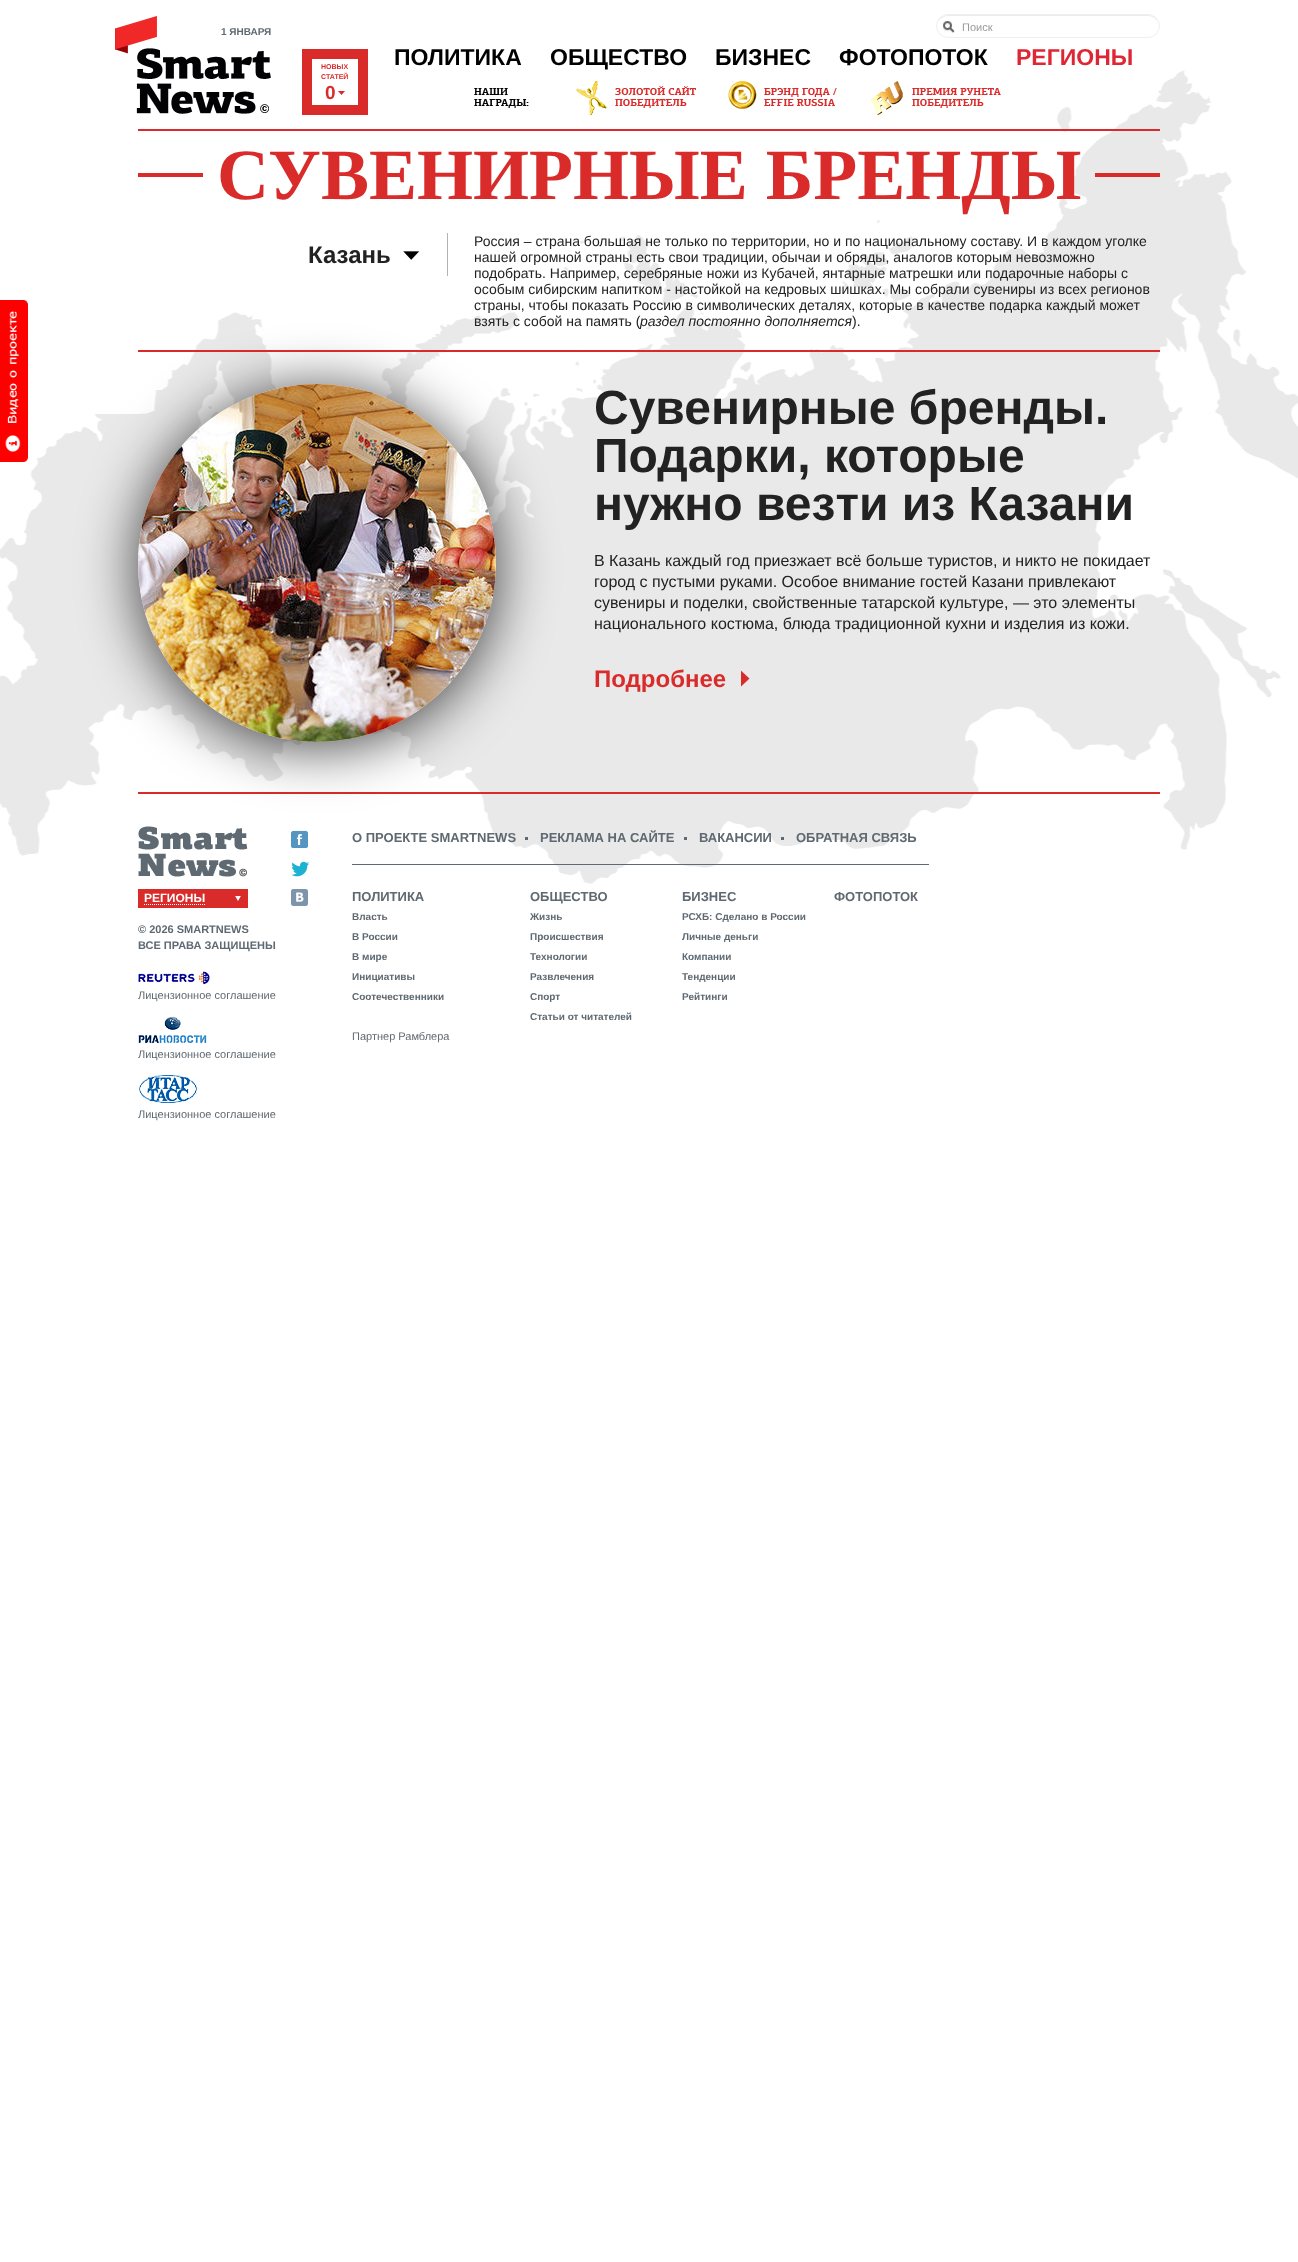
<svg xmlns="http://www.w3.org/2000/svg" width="1298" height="2262">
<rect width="100%" height="100%" fill="#fff"/>
<image x="0" y="70" width="1298" height="814" href="media/1.png"/>
<image x="0" y="300" width="28" height="162" href="media/2.png"/>
<image x="136" y="48" width="135" height="66" href="media/4.png"/>
<image x="115" y="16" width="42" height="38" href="media/3.png"/>
<text x="221" y="35" style="font-family:Liberation Sans;font-size:10px;font-weight:bold;fill:#5f6971">1 ЯНВАРЯ</text>
<image x="943" y="21" width="12" height="12" href="media/5.png"/>
<path d="M948 16h200c6 0 11 5 11 11c0-7-5-12-11-12h-200c-6 0-11 5-11 12c0-6 5-11 11-11z" fill="#ececec"/>
<rect x="936.5" y="14.5" width="223" height="23" rx="11.5" fill="none" stroke="#ecf0f2"/>
<text x="962" y="31" style="font-family:Liberation Sans;font-size:11px;fill:#999">Поиск</text>
<text x="394" y="65" style="font-family:Liberation Sans;font-size:23px;font-weight:bold;fill:#000">ПОЛИТИКА</text>
<text x="550" y="65" style="font-family:Liberation Sans;font-size:23px;font-weight:bold;fill:#000">ОБЩЕСТВО</text>
<text x="715" y="65" style="font-family:Liberation Sans;font-size:23px;font-weight:bold;fill:#000">БИЗНЕС</text>
<text x="839" y="65" style="font-family:Liberation Sans;font-size:23px;font-weight:bold;fill:#000">ФОТОПОТОК</text>
<text x="1016" y="65" style="font-family:Liberation Sans;font-size:23px;font-weight:bold;fill:#de2734">РЕГИОНЫ</text>
<rect x="307" y="54" width="56" height="56" fill="none" stroke="#da2b2b" stroke-width="10"/>
<text x="321" y="69" style="font-family:Liberation Sans;font-size:7px;font-weight:bold;fill:#da2b2b">НОВЫХ</text>
<text x="321" y="79" style="font-family:Liberation Sans;font-size:7px;font-weight:bold;fill:#da2b2b">СТАТЕЙ</text>
<text x="325" y="99" style="font-family:Liberation Sans;font-size:19px;font-weight:bold;fill:#da2b2b">0</text>
<image x="338" y="91" width="7" height="4" href="media/6.png"/>
<image x="474" y="80" width="527" height="35" href="media/7.png"/>
<rect x="138" y="129" width="1022" height="2" fill="#da2b2b"/>
<rect x="138" y="792" width="1022" height="2" fill="#da2b2b"/>
<rect x="138" y="389" width="358" height="358" rx="179" fill="#000000bf" filter="blur(28.5px)"/>
<rect x="138" y="350" width="1022" height="2" fill="#da2b2b"/>
<image x="138" y="173" width="1022" height="4" href="media/8.png"/>
<text x="217" y="199" style="font-family:Liberation Serif;font-size:72px;font-weight:bold;fill:#da2b2b">СУВЕНИРНЫЕ БРЕНДЫ</text>
<rect x="447" y="233" width="1" height="43" fill="#b2b2b2"/>
<image x="403" y="251" width="17" height="9" href="media/9.png"/>
<text x="308" y="263" style="font-family:Liberation Sans;font-size:24px;font-weight:bold;fill:#222">Казань</text>
<text x="474" y="246" style="font-family:Liberation Sans;font-size:14px;fill:#222">Россия – страна большая не только по территории, но и по национальному составу. И в каждом уголке</text>
<text x="474" y="262" style="font-family:Liberation Sans;font-size:14px;fill:#222">нашей огромной страны есть свои традиции, обычаи и обряды, аналогов которым невозможно</text>
<text x="474" y="278" style="font-family:Liberation Sans;font-size:14px;fill:#222">подобрать. Например, серебряные ножи из Кубачей, янтарные матрешки или подарочные наборы с</text>
<text x="474" y="294" style="font-family:Liberation Sans;font-size:14px;fill:#222">особым сибирским напитком - настойкой на кедровых шишках. Мы собрали сувениры из всех регионов</text>
<text x="474" y="310" style="font-family:Liberation Sans;font-size:14px;fill:#222">страны, чтобы показать Россию в символических деталях, которые в качестве подарка каждый может</text>
<text x="474" y="326" style="font-family:Liberation Sans;font-size:14px;fill:#222">взять с собой на память (</text>
<text x="640" y="326" style="font-family:Liberation Sans;font-size:14px;font-style:italic;fill:#222">раздел постоянно дополняется</text>
<text x="852" y="326" style="font-family:Liberation Sans;font-size:14px;fill:#222">).</text>
<circle cx="317" cy="563" r="179" fill="#fff"/>
<image x="138" y="384" width="358" height="358" href="media/10.png"/>
<text x="594" y="424" style="font-family:Liberation Sans;font-size:48px;font-weight:bold;fill:#222">Сувенирные бренды.</text>
<text x="594" y="472" style="font-family:Liberation Sans;font-size:48px;font-weight:bold;fill:#222">Подарки, которые</text>
<text x="594" y="520" style="font-family:Liberation Sans;font-size:48px;font-weight:bold;fill:#222">нужно везти из Казани</text>
<text x="594" y="566" style="font-family:Liberation Sans;font-size:16px;fill:#222">В Казань каждый год приезжает всё больше туристов, и никто не покидает</text>
<text x="594" y="587" style="font-family:Liberation Sans;font-size:16px;fill:#222">город с пустыми руками. Особое внимание гостей Казани привлекают</text>
<text x="594" y="608" style="font-family:Liberation Sans;font-size:16px;fill:#222">сувениры и поделки, свойственные татарской культуре, — это элементы</text>
<text x="594" y="629" style="font-family:Liberation Sans;font-size:16px;fill:#222">национального костюма, блюда традиционной кухни и изделия из кожи.</text>
<text x="594" y="687" style="font-family:Liberation Sans;font-size:24px;font-weight:bold;fill:#da2b2b">Подробнее</text>
<image x="741" y="670" width="9" height="17" href="media/11.png"/>
<image x="138" y="826" width="110" height="51" href="media/12.png"/>
<rect x="138" y="889" width="110" height="19" fill="#da2b2b"/>
<image x="235" y="896" width="6" height="5" href="media/13.png"/>
<path d="M144 904.5h61" fill="none" stroke="#fff" stroke-dasharray="1 1"/>
<text x="144" y="902" style="font-family:Liberation Sans;font-size:12px;font-weight:bold;fill:#fff">РЕГИОНЫ</text>
<text x="138" y="933" style="font-family:Liberation Sans;font-size:11px;font-weight:bold;fill:#5f6971">© 2026 SMARTNEWS</text>
<text x="138" y="949" style="font-family:Liberation Sans;font-size:11px;font-weight:bold;fill:#5f6971">ВСЕ ПРАВА ЗАЩИЩЕНЫ</text>
<image x="138" y="971" width="72" height="14" href="media/14.png"/>
<text x="138" y="999" style="font-family:Liberation Sans;font-size:11px;fill:#5f6971">Лицензионное соглашение</text>
<image x="138" y="1016" width="69" height="28" href="media/15.png"/>
<text x="138" y="1058" style="font-family:Liberation Sans;font-size:11px;fill:#5f6971">Лицензионное соглашение</text>
<image x="139" y="1075" width="59" height="28" href="media/16.png"/>
<text x="138" y="1118" style="font-family:Liberation Sans;font-size:11px;fill:#5f6971">Лицензионное соглашение</text>
<image x="291" y="830" width="17" height="18" href="media/17.png"/>
<image x="291" y="861" width="18" height="16" href="media/18.png"/>
<image x="291" y="889" width="17" height="17" href="media/19.png"/>
<rect x="352" y="864" width="577" height="1" fill="#5f6971"/>
<rect x="525" y="837" width="3" height="3" fill="#5f6971"/>
<text x="352" y="842" style="font-family:Liberation Sans;font-size:13px;font-weight:bold;fill:#5f6971">О ПРОЕКТЕ SMARTNEWS</text>
<rect x="684" y="837" width="3" height="3" fill="#5f6971"/>
<text x="540" y="842" style="font-family:Liberation Sans;font-size:13px;font-weight:bold;fill:#5f6971">РЕКЛАМА НА САЙТЕ</text>
<rect x="781" y="837" width="3" height="3" fill="#5f6971"/>
<text x="699" y="842" style="font-family:Liberation Sans;font-size:13px;font-weight:bold;fill:#5f6971">ВАКАНСИИ</text>
<text x="796" y="842" style="font-family:Liberation Sans;font-size:13px;font-weight:bold;fill:#5f6971">ОБРАТНАЯ СВЯЗЬ</text>
<text x="352" y="901" style="font-family:Liberation Sans;font-size:13px;font-weight:bold;fill:#5f6971">ПОЛИТИКА</text>
<text x="352" y="920" style="font-family:Liberation Sans;font-size:10px;font-weight:bold;fill:#5f6971">Власть</text>
<text x="352" y="940" style="font-family:Liberation Sans;font-size:10px;font-weight:bold;fill:#5f6971">В России</text>
<text x="352" y="960" style="font-family:Liberation Sans;font-size:10px;font-weight:bold;fill:#5f6971">В мире</text>
<text x="352" y="980" style="font-family:Liberation Sans;font-size:10px;font-weight:bold;fill:#5f6971">Инициативы</text>
<text x="352" y="1000" style="font-family:Liberation Sans;font-size:10px;font-weight:bold;fill:#5f6971">Соотечественники</text>
<text x="352" y="1040" style="font-family:Liberation Sans;font-size:11px;fill:#5f6971">Партнер Рамблера</text>
<text x="530" y="901" style="font-family:Liberation Sans;font-size:13px;font-weight:bold;fill:#5f6971">ОБЩЕСТВО</text>
<text x="530" y="920" style="font-family:Liberation Sans;font-size:10px;font-weight:bold;fill:#5f6971">Жизнь</text>
<text x="530" y="940" style="font-family:Liberation Sans;font-size:10px;font-weight:bold;fill:#5f6971">Происшествия</text>
<text x="530" y="960" style="font-family:Liberation Sans;font-size:10px;font-weight:bold;fill:#5f6971">Технологии</text>
<text x="530" y="980" style="font-family:Liberation Sans;font-size:10px;font-weight:bold;fill:#5f6971">Развлечения</text>
<text x="530" y="1000" style="font-family:Liberation Sans;font-size:10px;font-weight:bold;fill:#5f6971">Спорт</text>
<text x="530" y="1020" style="font-family:Liberation Sans;font-size:10px;font-weight:bold;fill:#5f6971">Статьи от читателей</text>
<text x="682" y="901" style="font-family:Liberation Sans;font-size:13px;font-weight:bold;fill:#5f6971">БИЗНЕС</text>
<text x="682" y="920" style="font-family:Liberation Sans;font-size:10px;font-weight:bold;fill:#5f6971">РСХБ: Сделано в России</text>
<text x="682" y="940" style="font-family:Liberation Sans;font-size:10px;font-weight:bold;fill:#5f6971">Личные деньги</text>
<text x="682" y="960" style="font-family:Liberation Sans;font-size:10px;font-weight:bold;fill:#5f6971">Компании</text>
<text x="682" y="980" style="font-family:Liberation Sans;font-size:10px;font-weight:bold;fill:#5f6971">Тенденции</text>
<text x="682" y="1000" style="font-family:Liberation Sans;font-size:10px;font-weight:bold;fill:#5f6971">Рейтинги</text>
<text x="834" y="901" style="font-family:Liberation Sans;font-size:13px;font-weight:bold;fill:#5f6971">ФОТОПОТОК</text>
</svg>
